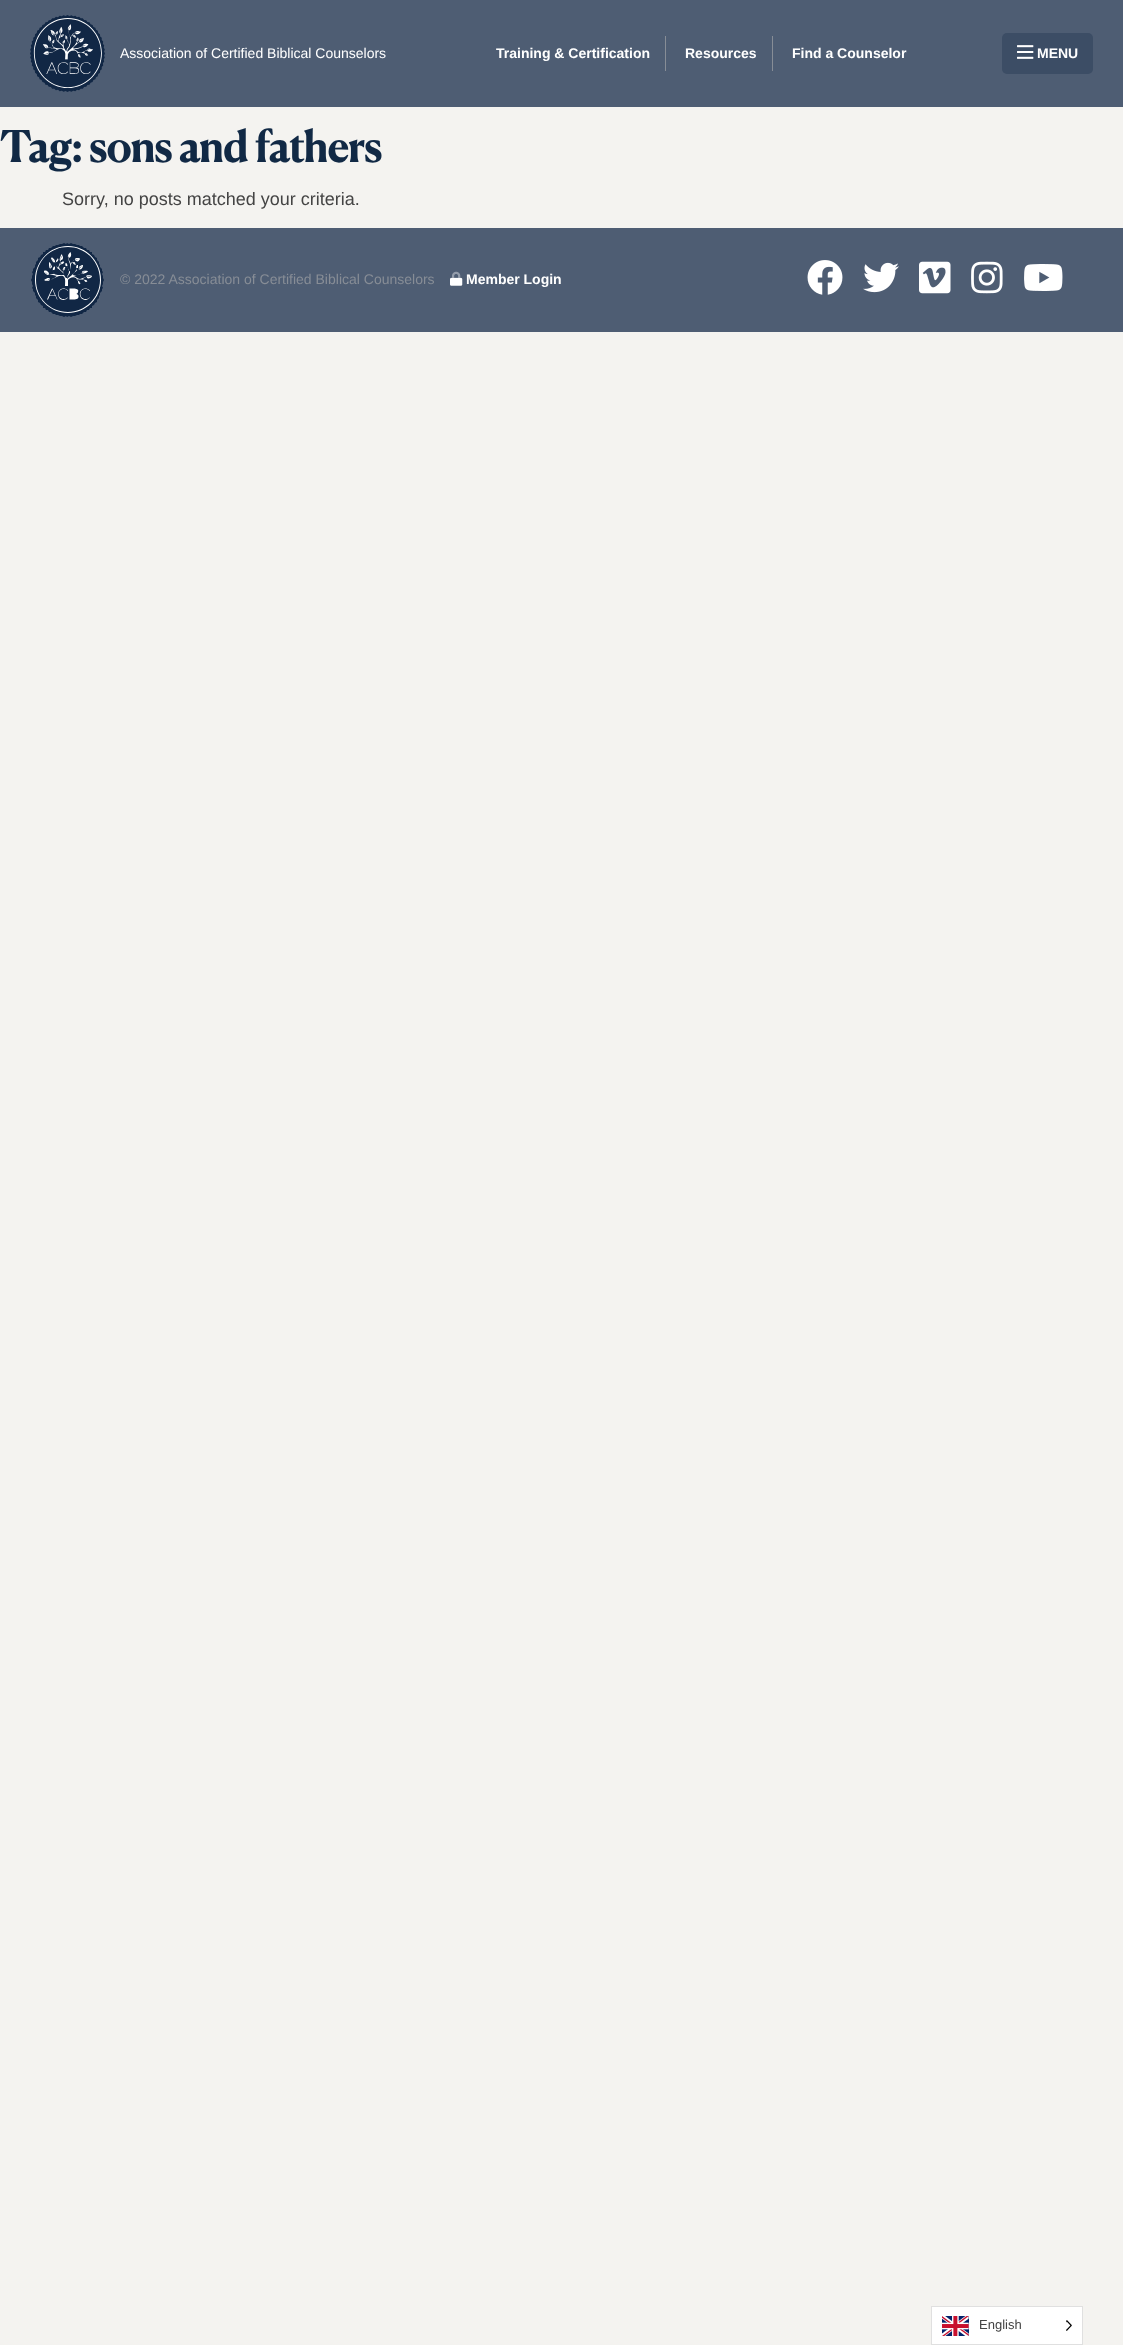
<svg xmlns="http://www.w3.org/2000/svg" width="1123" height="2345">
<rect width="100%" height="100%" fill="#f4f3f0"/>
<rect width="1123" height="107" fill="#4e5d73"/>
<image x="30" y="15" width="75" height="77" href="media/1.png"/>
<text x="120" y="58" style="font-family:Liberation Sans;font-size:14px;fill:#fff">Association of Certified Biblical Counselors</text>
<rect x="665" y="36" width="1" height="35" fill="#878d96"/>
<text x="496" y="58" style="font-family:Liberation Sans;font-size:14px;font-weight:bold;fill:#fff">Training &amp; Certification</text>
<rect x="772" y="36" width="1" height="35" fill="#878d96"/>
<text x="685" y="58" style="font-family:Liberation Sans;font-size:14px;font-weight:bold;fill:#fff">Resources</text>
<text x="792" y="58" style="font-family:Liberation Sans;font-size:14px;font-weight:bold;fill:#fff">Find a Counselor</text>
<rect x="1002" y="33" width="91" height="41" rx="5" fill="#3c4d65"/>
<image x="1017" y="45" width="17" height="14" href="media/2.png"/>
<text x="1037" y="58" style="font-family:Liberation Sans;font-size:14px;font-weight:bold;fill:#fff">MENU</text>
<text x="0" y="162" style="font-family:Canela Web;font-size:42px;font-weight:bold;fill:#112945">Tag: sons and fathers</text>
<text x="62" y="205" style="font-family:Liberation Sans;font-size:18px;fill:#444">Sorry, no posts matched your criteria.</text>
<rect y="228" width="1123" height="104" fill="#4e5d73"/>
<path d="M67 243l-1 1l-2-1l-2 1h-2l-2 1h-2l-1 1h-2l-2 2h-2l-1 2h-2l-1 2h-2v2l-2 1l-1 2l-2 1v2l-2 2v2l-1 1v2l-2 2v2l-1 1l1 2l-1 2v2l-1 2l1 2v2l1 2l-1 2l1 1v2l2 2v2l1 1v2l2 2v2l2 1l1 2l2 1v2h2l1 2h2l1 2h2l2 2h2l1 1h2l2 1h2l2 1l2-1l1 1l2-1l2 1l2-1h2l2-1h2l1-1h2l2-2h2l1-2h2l1-2h2v-2l2-1l1-2l2-1v-2l2-2v-2l1-1v-2l2-2v-2l1-1l-1-2l1-2v-2l1-2l-1-2v-2l-1-2l1-2l-1-1v-2l-2-2v-2l-1-1v-2l-2-2v-2l-2-1l-1-2l-2-1v-2h-2l-1-2h-2l-1-2h-2l-2-2h-2l-1-1h-2l-2-1h-2l-2-1l-2 1z" fill="#112745"/>
<path d="M68 313c-18 0-33-15-33-33c0-19 15-34 33-34c18 0 33 15 33 34c0 18-15 33-33 33zm0-66c-18 0-32 14-32 33c0 18 14 32 32 32c17 0 32-14 32-32c0-19-15-33-32-33z" fill="#fff" fill-rule="evenodd"/>
<path d="M52 288.5l-5 11h1l1.5-3.5h6l1.5 3.5h.5l-5-11zm-2.5 7l3-6l2.5 6z" fill="#fff" fill-rule="evenodd"/>
<path d="M64 289c1.5 0 3 .5 3.5 2l.5-.5c-1-1.5-3-2-5-2c-6.5 .5-6.5 11.5 .5 11.5c2-.5 3.5-1 4.5-2.5h-.5c-1 1-2.5 1.5-4 1.5c-6.5 0-6.5-10.5 .5-10zm12.5 5c1 0 2 1 2 2c.5 4.5-6.5 3.5-9 3.5v-11c2 0 10.5-1 8.5 3.5c0 1-1 1.5-1.5 2zm9-5c1.5 0 3 .5 4 2l.5-.5c-1.5-1.5-3-2-5-2c-7 .5-7 11 .5 11.5c1.5 0 3-1 4.5-2.5h-.5c-1 1-2.5 1.5-4 1.5c-7 0-6.5-10.5 0-10zm-17-31c-.5-2 1-3 1.5-4.5l-1 2c-1.5 4 3 2 2-2l-.5-1.5l-1 1c-1 1.5-2 2.5-1.5 4z" fill="#fff"/>
<path d="M92 276c0 0-6-2-6 1l-6 2c-3 0-4-3-7-3l7-2l3-1c-3 2 5 0 5-2c-1 0-7-1-6 2c1-2 3-1 5-1h-3l-2 1c-3 2-6 2-9 2c0-2 5-5 6-6c0 1 3 1 4-3c0-1 0-1-1-1c-1 1-4 1-3 4c-2 1-3 3-2-1h1c0-1 0-2 0-3h-1c0 0-2 3 0 3l1-3l-1 3c-1 3-3 5-5 7l-5 4c0-3 2-4 3-6v-3l1-6l2-2h-1c1-1 2-2 3-2l1 1c2 1 3 0 4-2c1-1-6-2-5 1c-2 0-4 3-4 4l-2-4v-3c-1 3 0 4 1 7c0 2 0 5 0 7h-1l-2-5c1 0 0-3-1-3c-1 0-1 4 1 3l-1-3l1 3c0 2 3 4 2 6c0 2-2 3-2 6h-1c-2-2-3-5-3-8c1 2 3-3 2-3h-1c0 0-2 3-1 3c0-1 1-1 2-2l-2 2v2c0 0-4-3-4-5c0-1 1-2 2-3c1 1 4-2 3-2c0-1-4 0-3 2c1-2 2-1 3-2l-4 2l1-4c2 0 2-2 2-3c-1-2-1-4-2-2c0 1-3 6 0 6c-1-2 0-4 1-5c0 1-2 3-1 4l-3 8c-1-1-2-3-2-6v1l-1-1v-1c0-1-3-5-4-3c0 0 2 6 4 4c-2 0-2-2-3-4l1 3l3 2l1 5c2 1 7 5 7 7c-4 0-12 1-11-5h1c1 0 1-2 1-3c-1-2-3 3-2 3l1-3l-1 3v2l-2-4l1-1c0-1-2-5-3-5v2c0 0 0 6 2 4c-1-1-1-2-1-4l1 4l3 6h-5c-2 0-3-1-4-2l3 2c3 1-1-5-4-3v1c0 0 4 5 5 2l8 2c-2 1-4 4-7 3c-1-3-6 1-6 1c1 1 6 2 6-1c-1 2-5 1-4 1c1 0 2 0 4-1c2 2 8-5 13-3c3 2 2 6 2 10h3v-6c1-2 5-4 8-2l2 3c0 1 0 2 1 3c3 1 0-4-1-3c1 0 2 1 2 2l-3-4c3 1 5 0 7 1c0 0 1 2 2 2c3 0 0-3-2-2l-1-1c1-1 2-2 4-2v1c1 1 5 0 5-2zm-38-9h0zm8-11h0zm18 18h0zm-4-15l3 1c-1 0-2-1-4 0zm3 9l3-2l-3 3zm12 9c-2 0-3-1-4 0h-1c1-1 2-1 3-1zm-6 3l2 2z" fill="#fff" fill-rule="evenodd"/>
<path d="M75 264l-1-1c-2-2.5-1 3 2 1.5l-.5-.5c-.5-1-.5-2.5-2-2h-.5c1 .5 1.5 1.5 2 2zm-18.5-2c0-1 .5-1.5 1-2.5l.5-.5l-1.5 2c-.5 2.5 3-1 1.5-2.5h-.5c0 .5-2.5 3-1 3.5z" fill="#fff"/>
<text x="120" y="284" style="font-family:Liberation Sans;font-size:14px;fill:#878d96">© 2022 Association of Certified Biblical Counselors</text>
<image x="450" y="277" width="13" height="9" href="media/4.png"/>
<image x="452" y="271" width="9" height="7" href="media/3.png"/>
<text x="466" y="284" style="font-family:Liberation Sans;font-size:14px;font-weight:bold;fill:#fff">Member Login</text>
<image x="807" y="260" width="36" height="35" href="media/5.png"/>
<image x="863" y="262" width="36" height="31" href="media/6.png"/>
<image x="919" y="261" width="32" height="33" href="media/7.png"/>
<image x="971" y="261" width="32" height="33" href="media/8.png"/>
<image x="1024" y="264" width="39" height="27" href="media/9.png"/>
<rect x="931.5" y="2306.5" width="151" height="38" fill="#fff" stroke="#e0e0e0"/>
<image x="942" y="2316" width="27" height="20" href="media/10.png"/>
<text x="979" y="2329" style="font-family:Liberation Sans;font-size:13px;fill:#444">English</text>
<image x="1066" y="2320" width="6" height="11" href="media/11.png"/>
</svg>
